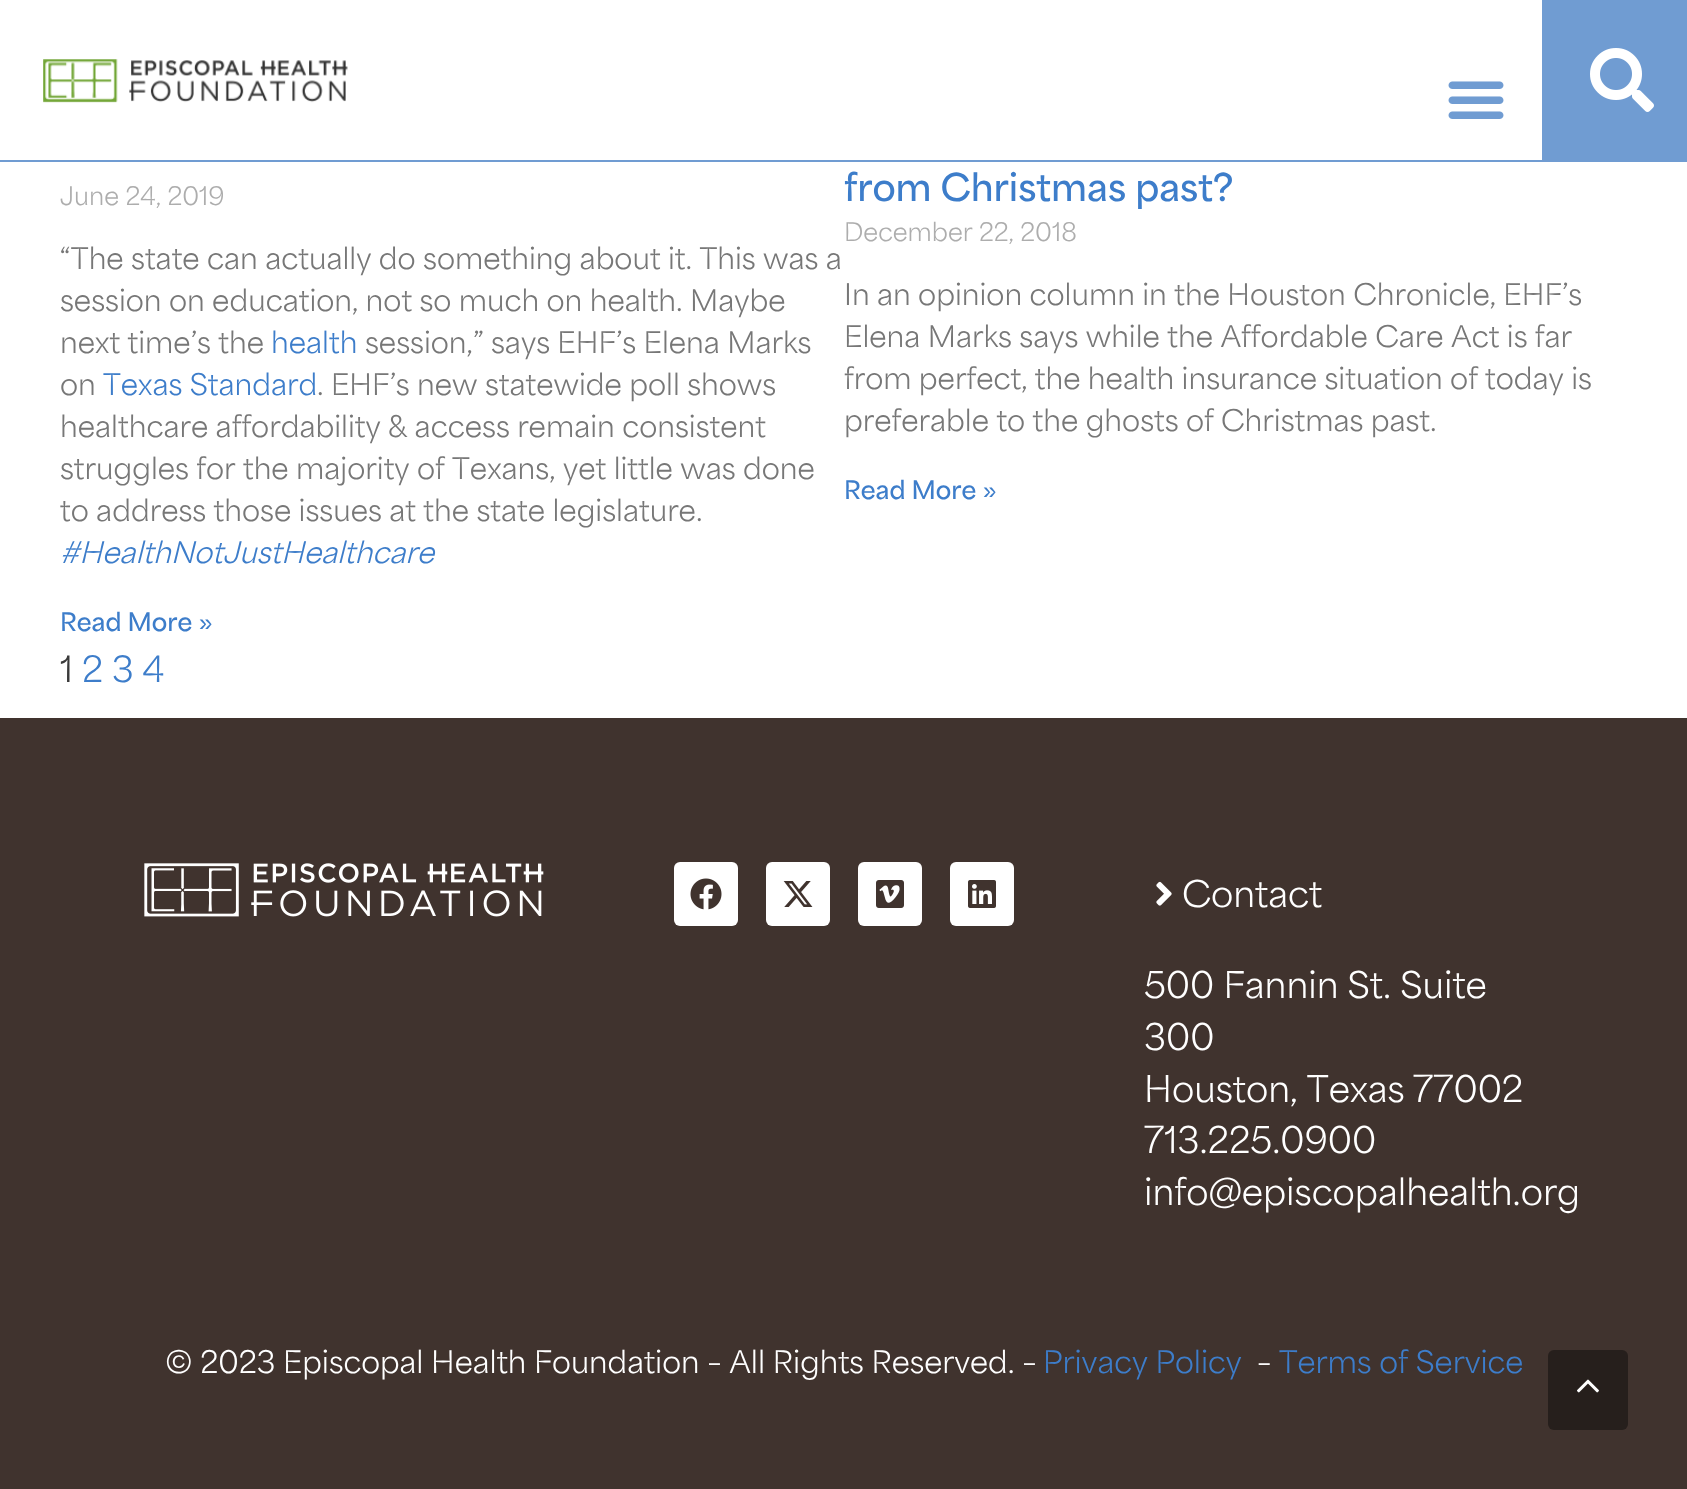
<svg xmlns="http://www.w3.org/2000/svg" width="1687" height="1489">
<style>*{font-kerning:none!important;font-variant-ligatures:none!important}</style>
<rect width="100%" height="100%" fill="#fff"/>
<rect y="160" width="1687" height="2" fill="#709cd2"/>
<image x="43" y="59" width="305" height="44" href="media/1.png"/>
<image x="1448" y="81" width="56" height="38" href="media/2.png"/>
<rect x="1542" width="145" height="160" fill="#709cd2"/>
<image x="1590" y="48" width="64" height="64" href="media/3.png"/>
<text x="60" y="205" style="font-family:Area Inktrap;font-size:24px;fill:#adadad">June 24, 2019</text>
<text x="60" y="269" style="font-family:Area Inktrap;font-size:28px;fill:#777">“The state can actually do something about it. This was a</text>
<text x="60" y="311" style="font-family:Area Inktrap;font-size:28px;fill:#777">session on education, not so much on health. Maybe</text>
<text x="60" y="353" style="font-family:Area Inktrap;font-size:28px;fill:#777">next time’s the</text>
<text x="271" y="353" style="font-family:Area Inktrap;font-size:28px;fill:#3d7dca">health</text>
<text x="365" y="353" style="font-family:Area Inktrap;font-size:28px;fill:#777">session,” says EHF’s Elena Marks</text>
<text x="60" y="395" style="font-family:Area Inktrap;font-size:28px;fill:#777">on</text>
<text x="103" y="395" style="font-family:Area Inktrap;font-size:28px;fill:#3d7dca">Texas Standard</text>
<text x="317" y="395" style="font-family:Area Inktrap;font-size:28px;fill:#777">. EHF’s new statewide poll shows</text>
<text x="60" y="437" style="font-family:Area Inktrap;font-size:28px;fill:#777">healthcare affordability &amp; access remain consistent</text>
<text x="60" y="479" style="font-family:Area Inktrap;font-size:28px;fill:#777">struggles for the majority of Texans,</text>
<text x="563" y="479" style="font-family:Area Inktrap;font-size:28px;fill:#777">yet little was done</text>
<text x="60" y="521" style="font-family:Area Inktrap;font-size:28px;fill:#777">to address those issues at the state legislature.</text>
<text x="60" y="563" style="font-family:Area Inktrap;font-size:28px;font-style:italic;fill:#3d7dca">#HealthNotJustHealthcare</text>
<text x="60" y="631" style="font-family:Area Inktrap;font-size:24px;font-weight:bold;fill:#3d7dca">Read More »</text>
<text x="844" y="201" style="font-family:Area Inktrap;font-size:36px;font-weight:bold;fill:#3d7dca">from Christmas past?</text>
<text x="844" y="241" style="font-family:Area Inktrap;font-size:24px;fill:#adadad">December 22, 2018</text>
<text x="844" y="305" style="font-family:Area Inktrap;font-size:28px;fill:#777">In an opinion column in the Houston Chronicle, EHF’s</text>
<text x="844" y="347" style="font-family:Area Inktrap;font-size:28px;fill:#777">Elena Marks says while the Affordable Care</text>
<text x="1451" y="347" style="font-family:Area Inktrap;font-size:28px;fill:#777">Act is far</text>
<text x="844" y="389" style="font-family:Area Inktrap;font-size:28px;fill:#777">from perfect, the health insurance situation of</text>
<text x="1485" y="389" style="font-family:Area Inktrap;font-size:28px;fill:#777">today is</text>
<text x="844" y="431" style="font-family:Area Inktrap;font-size:28px;fill:#777">preferable to the ghosts of Christmas past.</text>
<text x="844" y="499" style="font-family:Area Inktrap;font-size:24px;font-weight:bold;fill:#3d7dca">Read More »</text>
<text x="60" y="682" style="font-family:Area Inktrap;font-size:34px;fill:#3a3a3a">1</text>
<text x="82" y="682" style="font-family:Area Inktrap;font-size:34px;fill:#3d7dca">2 3 4</text>
<rect y="718" width="1687" height="771" fill="#40332e"/>
<image x="144" y="863" width="400" height="54" href="media/4.png"/>
<rect x="674" y="862" width="64" height="64" rx="6" fill="#fff"/>
<image x="690" y="878" width="32" height="32" href="media/5.png"/>
<rect x="766" y="862" width="64" height="64" rx="6" fill="#fff"/>
<image x="783" y="881" width="30" height="26" href="media/6.png"/>
<rect x="858" y="862" width="64" height="64" rx="6" fill="#fff"/>
<image x="876" y="880" width="28" height="28" href="media/7.png"/>
<rect x="950" y="862" width="64" height="64" rx="6" fill="#fff"/>
<image x="968" y="880" width="28" height="28" href="media/8.png"/>
<image x="1156" y="881" width="16" height="25" href="media/9.png"/>
<text x="1182" y="907" style="font-family:Area Inktrap;font-size:34.5px;fill:#fff">Contact</text>
<text x="1144" y="998" style="font-family:Area Inktrap;font-size:34.5px;fill:#fff">500 Fannin St. Suite</text>
<text x="1144" y="1050" style="font-family:Area Inktrap;font-size:34.5px;fill:#fff">300</text>
<text x="1144" y="1102" style="font-family:Area Inktrap;font-size:34.5px;fill:#fff">Houston, Texas</text>
<text x="1413" y="1102" style="font-family:Area Inktrap;font-size:34.5px;fill:#fff">77002</text>
<text x="1144" y="1153" style="font-family:Area Inktrap;font-size:34.5px;fill:#fff">713.225.0900</text>
<text x="1144" y="1205" style="font-family:Area Inktrap;font-size:34.5px;fill:#fff">info@episcopalhealth.org</text>
<text x="165" y="1373" style="font-family:Area Inktrap;font-size:29.2px;fill:#fff">© 2023 Episcopal Health Foundation – All Rights Reserved. –</text>
<text x="1043" y="1373" style="font-family:Area Inktrap;font-size:29.2px;fill:#3d7dca">Privacy Policy</text>
<text x="1257" y="1373" style="font-family:Area Inktrap;font-size:29.2px;fill:#fff">–</text>
<text x="1279" y="1373" style="font-family:Area Inktrap;font-size:29.2px;fill:#3d7dca">Terms of Service</text>
<rect x="1548" y="1350" width="80" height="80" rx="6" fill="#261f1c"/>
<image x="1577" y="1379" width="22" height="14" href="media/10.png"/>
</svg>
